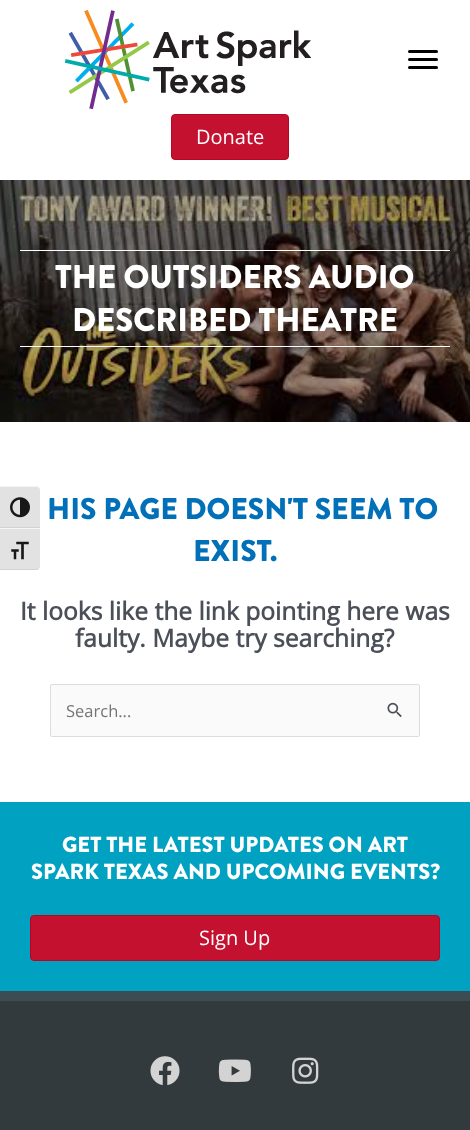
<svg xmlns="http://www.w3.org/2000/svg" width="470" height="1130">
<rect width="100%" height="100%" fill="#fff"/>
<path d="M0 486h36c2 0 4 2 4 4v38h-40z" fill="#e2e2e2"/>
<path d="M0 486v1h36c2 0 4 1 4 3c0-2-2-4-4-4z" fill="#f5f5f5"/>
<rect y="527" width="40" height="1" fill="#d2d2d2"/>
<image x="10" y="497" width="20" height="21" href="media/1.png"/>
<path d="M0 528h40v38c0 2-2 4-4 4h-36z" fill="#e2e2e2"/>
<rect y="528" width="40" height="1" fill="#f5f5f5"/>
<path d="M0 569v1h36c2 0 4-2 4-4c0 2-2 3-4 3z" fill="#d2d2d2"/>
<image x="11" y="541" width="18" height="19" href="media/2.png"/>
<image x="65" y="10" width="246" height="99" href="media/3.png"/>
<rect x="408" y="58" width="30" height="3" rx="1.5" fill="#000"/>
<rect x="408" y="50" width="30" height="3" rx="1.5" fill="#000"/>
<rect x="408" y="66" width="30" height="3" rx="1.5" fill="#000"/>
<rect x="171.5" y="114.5" width="117" height="45" rx="3.5" fill="#c4112f" stroke="#b80523"/>
<text x="196" y="144" style="font-family:Open Sans;font-size:20px;fill:#fff">Donate</text>
<image x="0" y="180" width="470" height="242" href="media/4.png"/>
<rect x="20" y="250" width="430" height="1" fill="#fff"/>
<rect x="20" y="346" width="430" height="1" fill="#fff"/>
<text x="55" y="288" style="font-family:Brandon Grotesque;font-size:32.75px;font-weight:900;fill:#fff">THE OUTSIDERS AUDIO</text>
<text x="72" y="331" style="font-family:Brandon Grotesque;font-size:32.75px;font-weight:900;fill:#fff">DESCRIBED THEATRE</text>
<text x="47" y="519" style="font-family:Brandon Grotesque;font-size:30px;font-weight:900;fill:#0170b9">HIS PAGE DOESN'T SEEM TO</text>
<text x="193" y="561" style="font-family:Brandon Grotesque;font-size:30px;font-weight:900;fill:#0170b9">EXIST.</text>
<text x="20" y="620" style="font-family:Open Sans;font-size:24.6px;font-weight:bold;fill:#4b4f58">It looks like the link pointing here was</text>
<text x="75" y="647" style="font-family:Open Sans;font-size:24.6px;font-weight:bold;fill:#4b4f58">faulty. Maybe try searching?</text>
<rect x="50.5" y="684.5" width="369" height="52" rx="1.5" fill="#fafafa" stroke="#ddd"/>
<text x="66" y="717" style="font-family:Open Sans;font-size:16.5px;fill:#757575">Search...</text>
<image x="387" y="702" width="15" height="16" href="media/5.png"/>
<rect y="802" width="470" height="189" fill="#00a1c1"/>
<text x="62" y="852" style="font-family:Brandon Grotesque;font-size:21.9px;font-weight:900;fill:#fff">GET THE LATEST UPDATES ON ART</text>
<text x="31" y="879" style="font-family:Brandon Grotesque;font-size:21.9px;font-weight:900;fill:#fff">SPARK TEXAS AND UPCOMING EVENTS?</text>
<rect x="30.5" y="915.5" width="409" height="45" rx="3.5" fill="#c4112f" stroke="#b80523"/>
<text x="199" y="945" style="font-family:Open Sans;font-size:20px;fill:#fff">Sign Up</text>
<rect y="1001" width="470" height="129" fill="#333a3e"/>
<rect y="991" width="470" height="10" fill="#3c4c53"/>
<image x="150" y="1056" width="30" height="29" href="media/6.png"/>
<image x="218" y="1059" width="33" height="23" href="media/7.png"/>
<image x="292" y="1057" width="27" height="27" href="media/8.png"/>
</svg>
